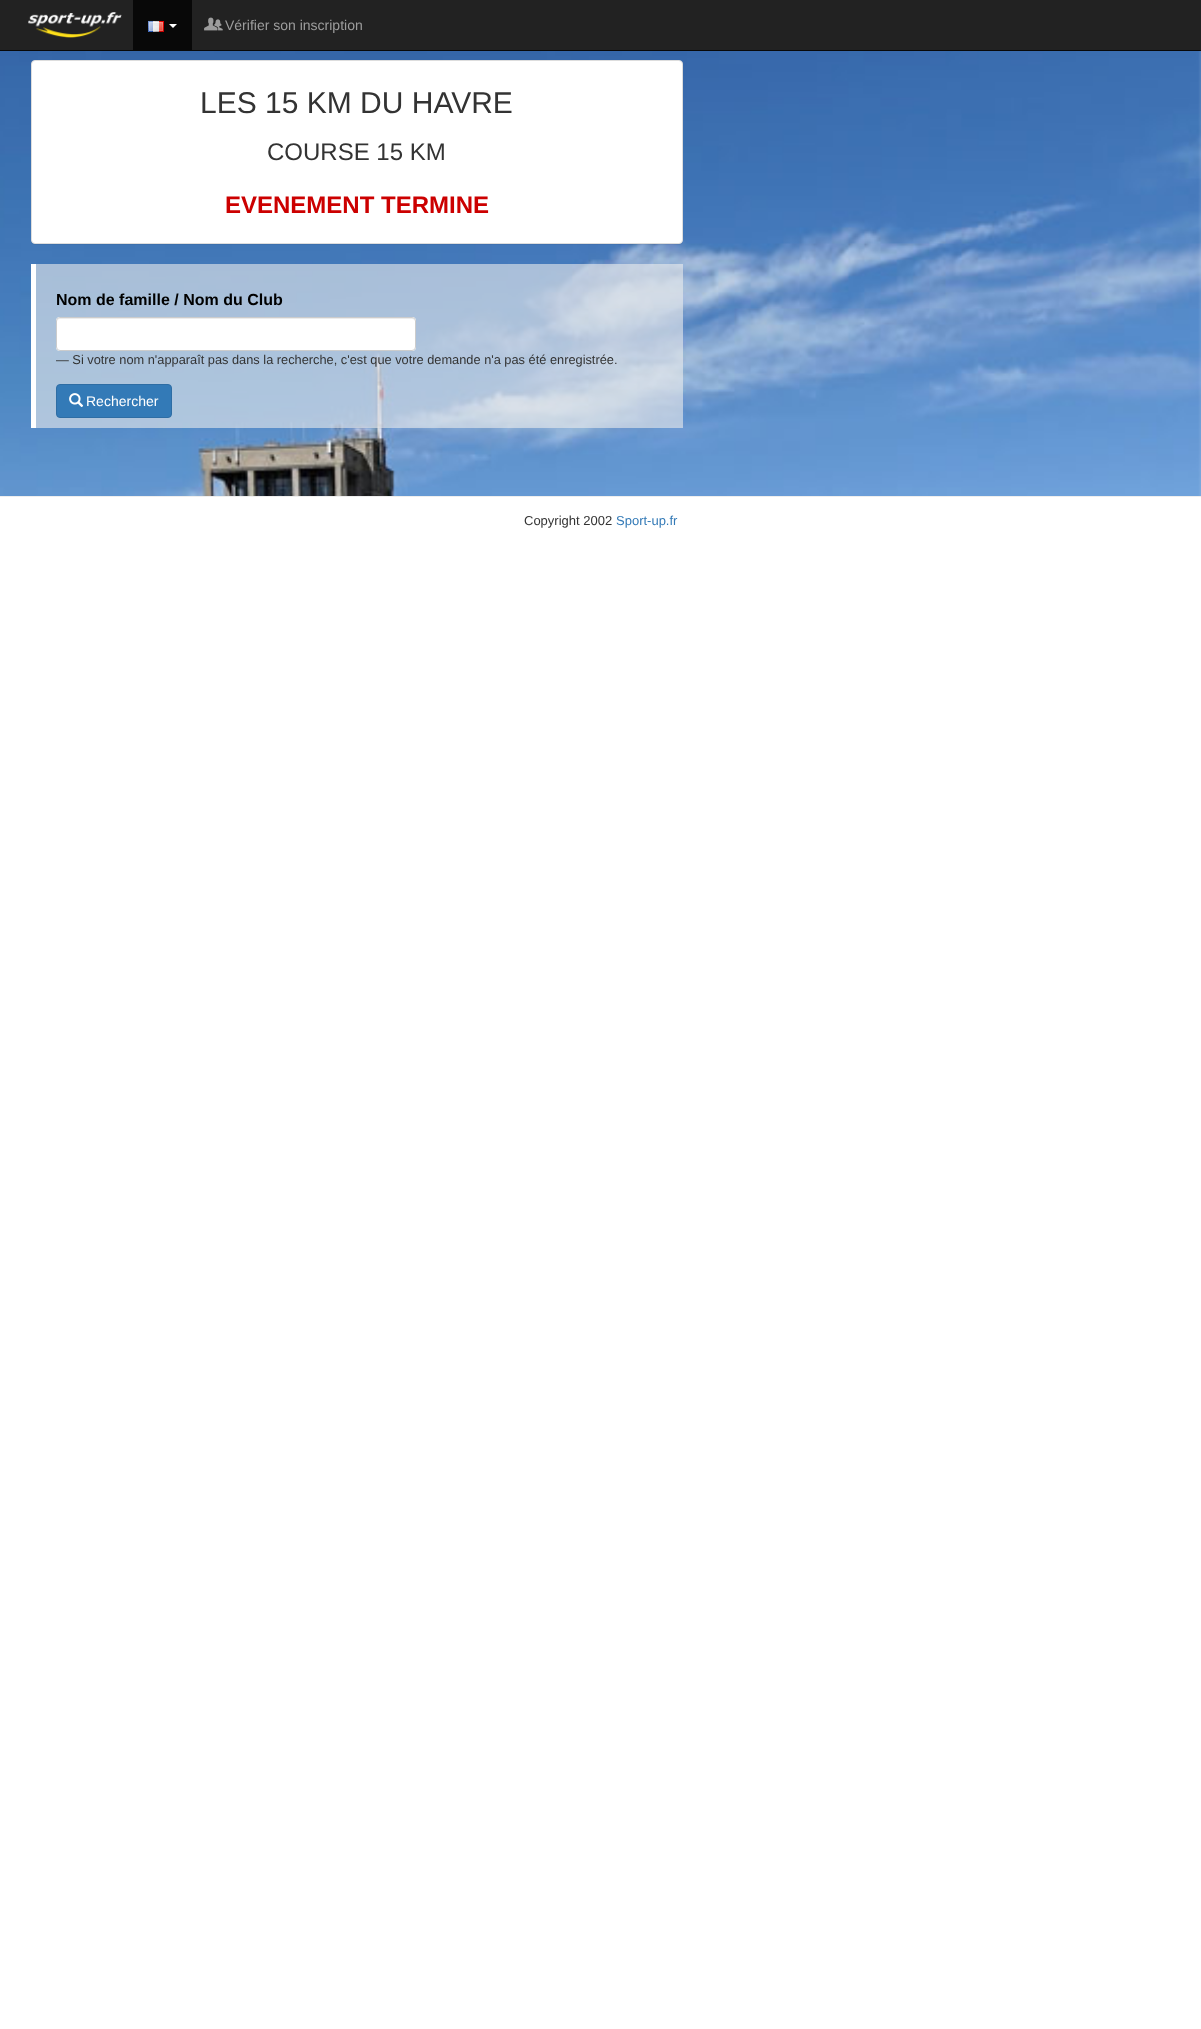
<svg xmlns="http://www.w3.org/2000/svg" width="1201" height="2029">
<rect width="100%" height="100%" fill="#fff"/>
<rect width="1201" height="50" fill="#222"/>
<rect y="50" width="1201" height="1" fill="#080808"/>
<image x="28" y="12" width="94" height="26" href="media/1.png"/>
<rect x="133" width="59" height="50" fill="#080808"/>
<image x="148" y="21" width="16" height="11" href="media/2.png"/>
<path d="M169 24h8l-4 4z" fill="#fff"/>
<image x="204" y="17" width="19" height="14" href="media/3.png"/>
<text x="225" y="30" style="font-family:Liberation Sans;font-size:14px;fill:#9d9d9d">Vérifier son inscription</text>
<image x="0" y="51" width="1201" height="445" href="media/4.png"/>
<rect x="31" y="61" width="652" height="184" rx="4" fill="#0000000d" filter="blur(0.5px)"/>
<rect x="31.5" y="60.5" width="651" height="183" rx="3.5" fill="#fff" stroke="#ddd"/>
<text x="200" y="113" style="font-family:Liberation Sans;font-size:30px;fill:#333">LES 15 KM DU HAVRE</text>
<text x="267" y="160" style="font-family:Liberation Sans;font-size:24px;fill:#333">COURSE 15 KM</text>
<text x="225" y="213" style="font-family:Liberation Sans;font-size:24px;font-weight:bold;fill:#c00">EVENEMENT TERMINE</text>
<rect x="36" y="264" width="647" height="164" fill="#ededed99"/>
<rect x="31" y="264" width="5" height="164" fill="#fff"/>
<text x="56" y="305" style="font-family:Liberation Sans;font-size:16px;font-weight:bold;fill:#000">Nom de famille / Nom du Club</text>
<rect x="56" y="317" width="360" height="34" rx="4" fill="#fff"/>
<path d="M60 319h352c2 0 3 1 3 3c0-2-1-4-3-4h-352l-2 1l-1 3c0-2 1-3 3-3z" fill="#ececec"/>
<rect x="56.5" y="317.5" width="359" height="33" rx="3.5" fill="none" stroke="#ccc"/>
<text x="56" y="364" style="font-family:Liberation Sans;font-size:12.8px;fill:#333">— Si votre nom n'apparaît pas dans la recherche, c'est que votre demande n'a pas été enregistrée.</text>
<rect x="56.5" y="384.5" width="115" height="33" rx="3.5" fill="#337ab7" stroke="#2e6da4"/>
<image x="69" y="393" width="15" height="14" href="media/5.png"/>
<text x="86" y="406" style="font-family:Liberation Sans;font-size:14px;fill:#fff">Rechercher</text>
<rect y="496" width="1201" height="1" fill="#eee"/>
<text x="524" y="525" style="font-family:Liberation Sans;font-size:13px;fill:#333">Copyright 2002</text>
<text x="616" y="525" style="font-family:Liberation Sans;font-size:13px;fill:#337ab7">Sport-up.fr</text>
</svg>
